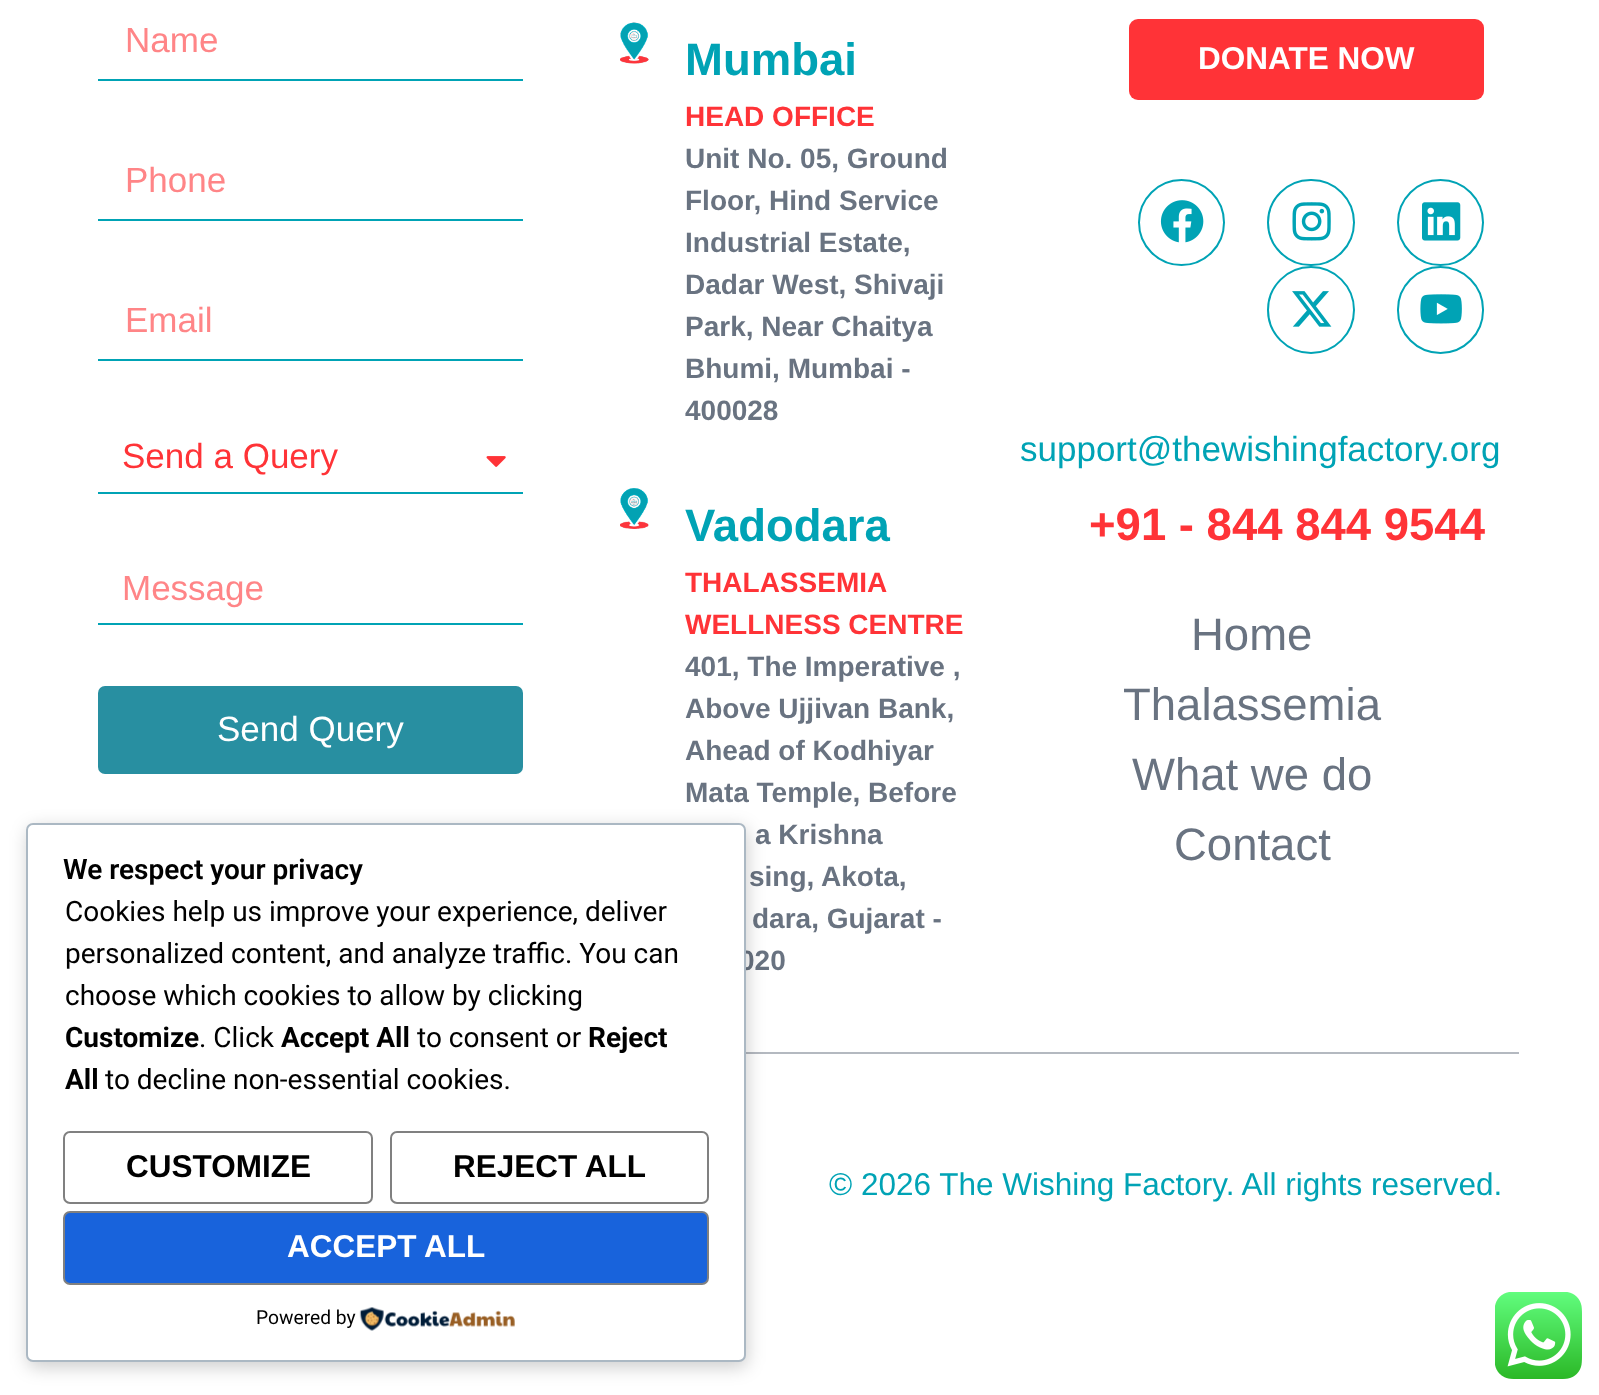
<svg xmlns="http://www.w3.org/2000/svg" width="1599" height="1395">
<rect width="100%" height="100%" fill="#fff"/>
<rect x="98" y="79" width="425" height="2" fill="#00a3b5"/>
<text x="125" y="52" style="font-family:Liberation Sans;font-size:35px;fill:#ff8587">Name</text>
<rect x="98" y="219" width="425" height="2" fill="#00a3b5"/>
<text x="125" y="192" style="font-family:Liberation Sans;font-size:35px;fill:#ff8587">Phone</text>
<rect x="98" y="359" width="425" height="2" fill="#00a3b5"/>
<text x="125" y="332" style="font-family:Liberation Sans;font-size:35px;fill:#ff8587">Email</text>
<rect x="98" y="492" width="425" height="2" fill="#00a3b5"/>
<text x="122" y="468" style="font-family:Liberation Sans;font-size:35px;fill:#ff3337">Send a Query</text>
<image x="486" y="456" width="20" height="11" href="media/1.png"/>
<rect x="98" y="623" width="425" height="2" fill="#00a3b5"/>
<text x="122" y="600" style="font-family:Liberation Sans;font-size:35px;fill:#ff8587">Message</text>
<rect x="98" y="686" width="425" height="88" rx="7" fill="#288fa1"/>
<text x="217" y="741" style="font-family:Liberation Sans;font-size:35px;fill:#fff">Send Query</text>
<image x="620" y="22" width="29" height="42" href="media/2.png"/>
<text x="685" y="75" style="font-family:Liberation Sans;font-size:45.5px;font-weight:bold;fill:#00a3b5">Mumbai</text>
<text x="685" y="126" style="font-family:Liberation Sans;font-size:28px;font-weight:bold;fill:#ff3337">HEAD OFFICE</text>
<text x="685" y="168" style="font-family:Liberation Sans;font-size:28px;font-weight:bold;fill:#697381">Unit No. 05, Ground</text>
<text x="685" y="210" style="font-family:Liberation Sans;font-size:28px;font-weight:bold;fill:#697381">Floor, Hind Service</text>
<text x="685" y="252" style="font-family:Liberation Sans;font-size:28px;font-weight:bold;fill:#697381">Industrial Estate,</text>
<text x="685" y="294" style="font-family:Liberation Sans;font-size:28px;font-weight:bold;fill:#697381">Dadar West, Shivaji</text>
<text x="685" y="336" style="font-family:Liberation Sans;font-size:28px;font-weight:bold;fill:#697381">Park, Near Chaitya</text>
<text x="685" y="378" style="font-family:Liberation Sans;font-size:28px;font-weight:bold;fill:#697381">Bhumi, Mumbai -</text>
<text x="685" y="420" style="font-family:Liberation Sans;font-size:28px;font-weight:bold;fill:#697381">400028</text>
<image x="620" y="488" width="29" height="41" href="media/3.png"/>
<text x="685" y="541" style="font-family:Liberation Sans;font-size:45.5px;font-weight:bold;fill:#00a3b5">Vadodara</text>
<text x="685" y="592" style="font-family:Liberation Sans;font-size:28px;font-weight:bold;fill:#ff3337">THALASSEMIA</text>
<text x="685" y="634" style="font-family:Liberation Sans;font-size:28px;font-weight:bold;fill:#ff3337">WELLNESS CENTRE</text>
<text x="685" y="676" style="font-family:Liberation Sans;font-size:28px;font-weight:bold;fill:#697381">401, The Imperative ,</text>
<text x="685" y="718" style="font-family:Liberation Sans;font-size:28px;font-weight:bold;fill:#697381">Above Ujjivan Bank,</text>
<text x="685" y="760" style="font-family:Liberation Sans;font-size:28px;font-weight:bold;fill:#697381">Ahead of Kodhiyar</text>
<text x="685" y="802" style="font-family:Liberation Sans;font-size:28px;font-weight:bold;fill:#697381">Mata Temple, Before</text>
<text x="755" y="844" style="font-family:Liberation Sans;font-size:28px;font-weight:bold;fill:#697381">a Krishna</text>
<text x="749" y="886" style="font-family:Liberation Sans;font-size:28px;font-weight:bold;fill:#697381">sing,</text>
<text x="821" y="886" style="font-family:Liberation Sans;font-size:28px;font-weight:bold;fill:#697381">Akota,</text>
<text x="752" y="928" style="font-family:Liberation Sans;font-size:28px;font-weight:bold;fill:#697381">dara, Gujarat -</text>
<text x="739" y="970" style="font-family:Liberation Sans;font-size:28px;font-weight:bold;fill:#697381">020</text>
<rect x="1129" y="19" width="355" height="81" rx="9" fill="#ff3337"/>
<text x="1198" y="69" style="font-family:Liberation Sans;font-size:31.5px;font-weight:bold;fill:#fff">DONATE NOW</text>
<circle cx="1181.5" cy="222.5" r="42.5" fill="none" stroke="#00a3b5" stroke-width="2"/>
<image x="1160" y="200" width="44" height="43" href="media/4.png"/>
<rect x="1268" y="180" width="86" height="85" rx="42.5" fill="none" stroke="#00a3b5" stroke-width="2"/>
<image x="1292" y="202" width="39" height="39" href="media/5.png"/>
<circle cx="1440.5" cy="222.5" r="42.5" fill="none" stroke="#00a3b5" stroke-width="2"/>
<image x="1422" y="202" width="39" height="39" href="media/6.png"/>
<circle cx="1311" cy="310" r="43" fill="none" stroke="#00a3b5" stroke-width="2"/>
<image x="1292" y="291" width="40" height="36" href="media/7.png"/>
<rect x="1398" y="267" width="85" height="86" rx="42.5" fill="none" stroke="#00a3b5" stroke-width="2"/>
<image x="1420" y="294" width="42" height="30" href="media/8.png"/>
<text x="1020" y="461" style="font-family:Liberation Sans;font-size:35px;fill:#00a3b5">support@thewishingfactory.org</text>
<text x="1089" y="540" style="font-family:Liberation Sans;font-size:45.5px;font-weight:bold;fill:#ff3337">+91 - 844 844 9544</text>
<text x="1191" y="650" style="font-family:Liberation Sans;font-size:45.5px;fill:#697381">Home</text>
<text x="1123" y="720" style="font-family:Liberation Sans;font-size:45.5px;fill:#697381">Thalassemia</text>
<text x="1132" y="790" style="font-family:Liberation Sans;font-size:45.5px;fill:#697381">What we do</text>
<text x="1174" y="860" style="font-family:Liberation Sans;font-size:45.5px;fill:#697381">Contact</text>
<rect x="746" y="1052" width="773" height="2" fill="#b4b9c0"/>
<text x="829" y="1195" style="font-family:Liberation Sans;font-size:31.5px;fill:#00a3b5">© 2026 The Wishing Factory. All rights reserved.</text>
<rect x="28" y="828" width="719" height="539" rx="7" fill="#00000033" filter="blur(9px)"/>
<rect x="27" y="824" width="718" height="537" rx="6" fill="#fff" stroke="#abb8c3" stroke-width="2"/>
<text x="63" y="879" style="font-family:Roboto;font-size:28px;font-weight:600;fill:#000">We respect your privacy</text>
<text x="65" y="921" style="font-family:Roboto;font-size:28px;fill:#000">Cookies help us improve your experience, deliver</text>
<text x="65" y="963" style="font-family:Roboto;font-size:28px;fill:#000">personalized content, and analyze traffic. You can</text>
<text x="65" y="1005" style="font-family:Roboto;font-size:28px;fill:#000">choose which cookies to allow by clicking</text>
<text x="65" y="1047" style="font-family:Roboto;font-size:28px;font-weight:bold;fill:#000">Customize</text>
<text x="199" y="1047" style="font-family:Roboto;font-size:28px;fill:#000">. Click</text>
<text x="281" y="1047" style="font-family:Roboto;font-size:28px;font-weight:bold;fill:#000">Accept All</text>
<text x="417" y="1047" style="font-family:Roboto;font-size:28px;fill:#000">to consent or</text>
<text x="588" y="1047" style="font-family:Roboto;font-size:28px;font-weight:bold;fill:#000">Reject</text>
<text x="65" y="1089" style="font-family:Roboto;font-size:28px;font-weight:bold;fill:#000">All</text>
<text x="105" y="1089" style="font-family:Roboto;font-size:28px;fill:#000">to decline non-essential cookies.</text>
<rect x="64" y="1132" width="308" height="71" rx="6" fill="none" stroke="#808080" stroke-width="2"/>
<text x="126" y="1177" style="font-family:Liberation Sans;font-size:31.5px;font-weight:bold;fill:#000">CUSTOMIZE</text>
<rect x="391" y="1132" width="317" height="71" rx="6" fill="none" stroke="#808080" stroke-width="2"/>
<text x="453" y="1177" style="font-family:Liberation Sans;font-size:31.5px;font-weight:bold;fill:#000">REJECT ALL</text>
<rect x="64" y="1212" width="644" height="72" rx="6" fill="#1863dc" stroke="#808080" stroke-width="2"/>
<text x="287" y="1257" style="font-family:Liberation Sans;font-size:31.5px;font-weight:bold;fill:#fff">ACCEPT ALL</text>
<text x="256" y="1324" style="font-family:Roboto;font-size:19.25px;fill:#000">Powered by</text>
<image x="359" y="1307" width="156" height="24" href="media/9.png"/>
<image x="1495" y="1292" width="87" height="87" href="media/10.png"/>
</svg>
